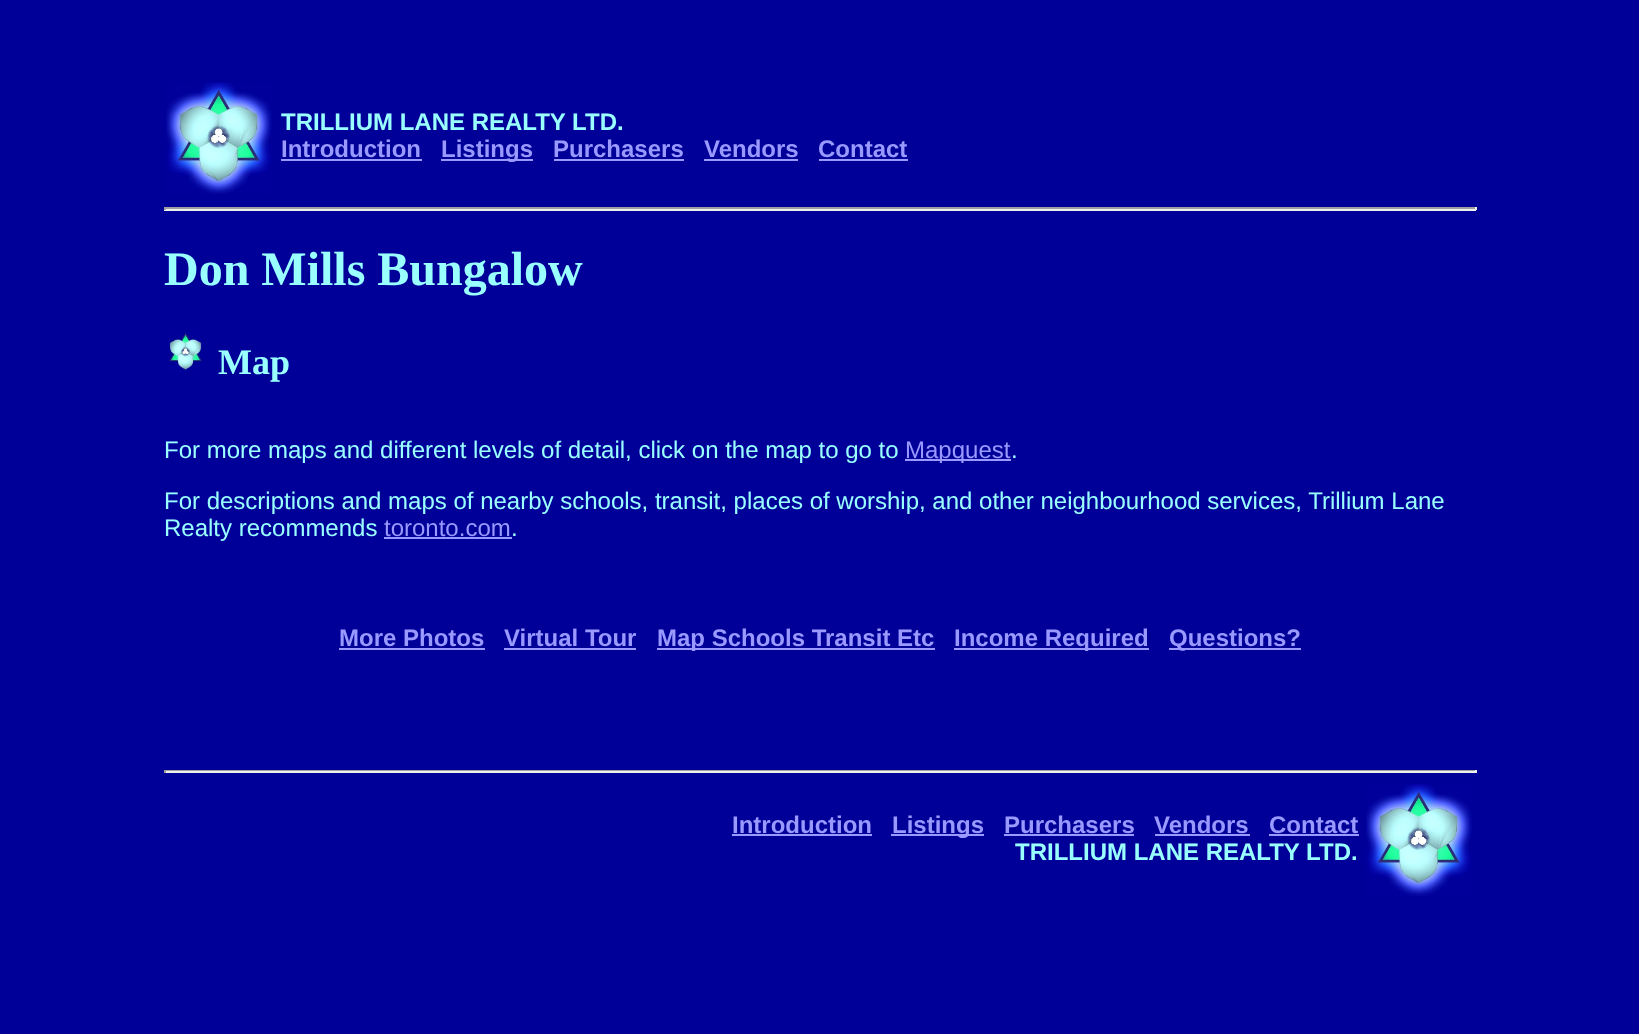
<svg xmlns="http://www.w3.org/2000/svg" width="1639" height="1034">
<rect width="100%" height="100%" fill="#009"/>
<image x="166" y="82" width="106" height="112" href="media/1.png"/>
<text x="281" y="130" style="font-family:Liberation Sans;font-size:24px;font-weight:bold;fill:#9ff">TRILLIUM LANE REALTY LTD.</text>
<text x="281" y="157" style="font-family:Liberation Sans;font-size:24px;font-weight:bold;fill:#99f">Introduction</text>
<rect x="281" y="159" width="141" height="2" fill="#99f"/>
<rect x="441" y="159" width="92" height="2" fill="#99f"/>
<text x="441" y="157" style="font-family:Liberation Sans;font-size:24px;font-weight:bold;fill:#99f">Listings</text>
<text x="553" y="157" style="font-family:Liberation Sans;font-size:24px;font-weight:bold;fill:#99f">Purchasers</text>
<rect x="554" y="159" width="130" height="2" fill="#99f"/>
<text x="704" y="157" style="font-family:Liberation Sans;font-size:24px;font-weight:bold;fill:#99f">Vendors</text>
<rect x="704" y="159" width="94" height="2" fill="#99f"/>
<text x="818" y="157" style="font-family:Liberation Sans;font-size:24px;font-weight:bold;fill:#99f">Contact</text>
<rect x="819" y="159" width="89" height="2" fill="#99f"/>
<rect x="164" y="207" width="1312" height="2" fill="#9f9f9f"/>
<rect x="1475" y="207" width="2" height="3" fill="#eee"/>
<rect x="164" y="209" width="1312" height="2" fill="#eee"/>
<rect x="164" y="207" width="2" height="3" fill="#9f9f9f"/>
<text x="164" y="285" style="font-family:Liberation Serif;font-size:48px;font-weight:bold;fill:#9ff">Don Mills Bungalow</text>
<image x="168" y="330" width="34" height="42" href="media/2.png"/>
<text x="218" y="374" style="font-family:Liberation Serif;font-size:36px;font-weight:bold;fill:#9ff">Map</text>
<text x="164" y="458" style="font-family:Liberation Sans;font-size:24px;fill:#9ff">For more maps and different levels of detail, click on the map to go to</text>
<rect x="905" y="459" width="106" height="2" fill="#99f"/>
<text x="905" y="458" style="font-family:Liberation Sans;font-size:24px;fill:#99f">Mapquest</text>
<text x="1011" y="458" style="font-family:Liberation Sans;font-size:24px;fill:#9ff">.</text>
<text x="164" y="509" style="font-family:Liberation Sans;font-size:24px;fill:#9ff">For descriptions and maps of nearby schools, transit, places of worship, and other neighbourhood services, Trillium Lane</text>
<text x="164" y="536" style="font-family:Liberation Sans;font-size:24px;fill:#9ff">Realty recommends</text>
<text x="384" y="536" style="font-family:Liberation Sans;font-size:24px;fill:#99f">toronto.com</text>
<rect x="384" y="537" width="128" height="2" fill="#99f"/>
<text x="511" y="536" style="font-family:Liberation Sans;font-size:24px;fill:#9ff">.</text>
<text x="339" y="646" style="font-family:Liberation Sans;font-size:24px;font-weight:bold;fill:#99f">More Photos</text>
<rect x="339" y="648" width="146" height="2" fill="#99f"/>
<text x="504" y="646" style="font-family:Liberation Sans;font-size:24px;font-weight:bold;fill:#99f">Virtual Tour</text>
<rect x="504" y="648" width="132" height="2" fill="#99f"/>
<rect x="657" y="648" width="278" height="2" fill="#99f"/>
<text x="657" y="646" style="font-family:Liberation Sans;font-size:24px;font-weight:bold;fill:#99f">Map Schools Transit Etc</text>
<rect x="954" y="648" width="195" height="2" fill="#99f"/>
<text x="954" y="646" style="font-family:Liberation Sans;font-size:24px;font-weight:bold;fill:#99f">Income Required</text>
<rect x="1169" y="648" width="132" height="2" fill="#99f"/>
<text x="1169" y="646" style="font-family:Liberation Sans;font-size:24px;font-weight:bold;fill:#99f">Questions?</text>
<rect x="164" y="770" width="1312" height="1" fill="#9f9f9f"/>
<rect x="1475" y="770" width="2" height="3" fill="#eee"/>
<rect x="164" y="771" width="1312" height="2" fill="#eee"/>
<rect x="164" y="770" width="2" height="3" fill="#9f9f9f"/>
<text x="732" y="833" style="font-family:Liberation Sans;font-size:24px;font-weight:bold;fill:#99f">Introduction</text>
<rect x="732" y="834" width="140" height="2" fill="#99f"/>
<rect x="891" y="834" width="93" height="2" fill="#99f"/>
<text x="892" y="833" style="font-family:Liberation Sans;font-size:24px;font-weight:bold;fill:#99f">Listings</text>
<text x="1004" y="833" style="font-family:Liberation Sans;font-size:24px;font-weight:bold;fill:#99f">Purchasers</text>
<rect x="1004" y="834" width="130" height="2" fill="#99f"/>
<text x="1154" y="833" style="font-family:Liberation Sans;font-size:24px;font-weight:bold;fill:#99f">Vendors</text>
<rect x="1155" y="834" width="95" height="2" fill="#99f"/>
<text x="1269" y="833" style="font-family:Liberation Sans;font-size:24px;font-weight:bold;fill:#99f">Contact</text>
<rect x="1269" y="834" width="90" height="2" fill="#99f"/>
<image x="1366" y="784" width="106" height="112" href="media/1.png"/>
<text x="1015" y="860" style="font-family:Liberation Sans;font-size:24px;font-weight:bold;fill:#9ff">TRILLIUM LANE REALTY LTD.</text>
</svg>
